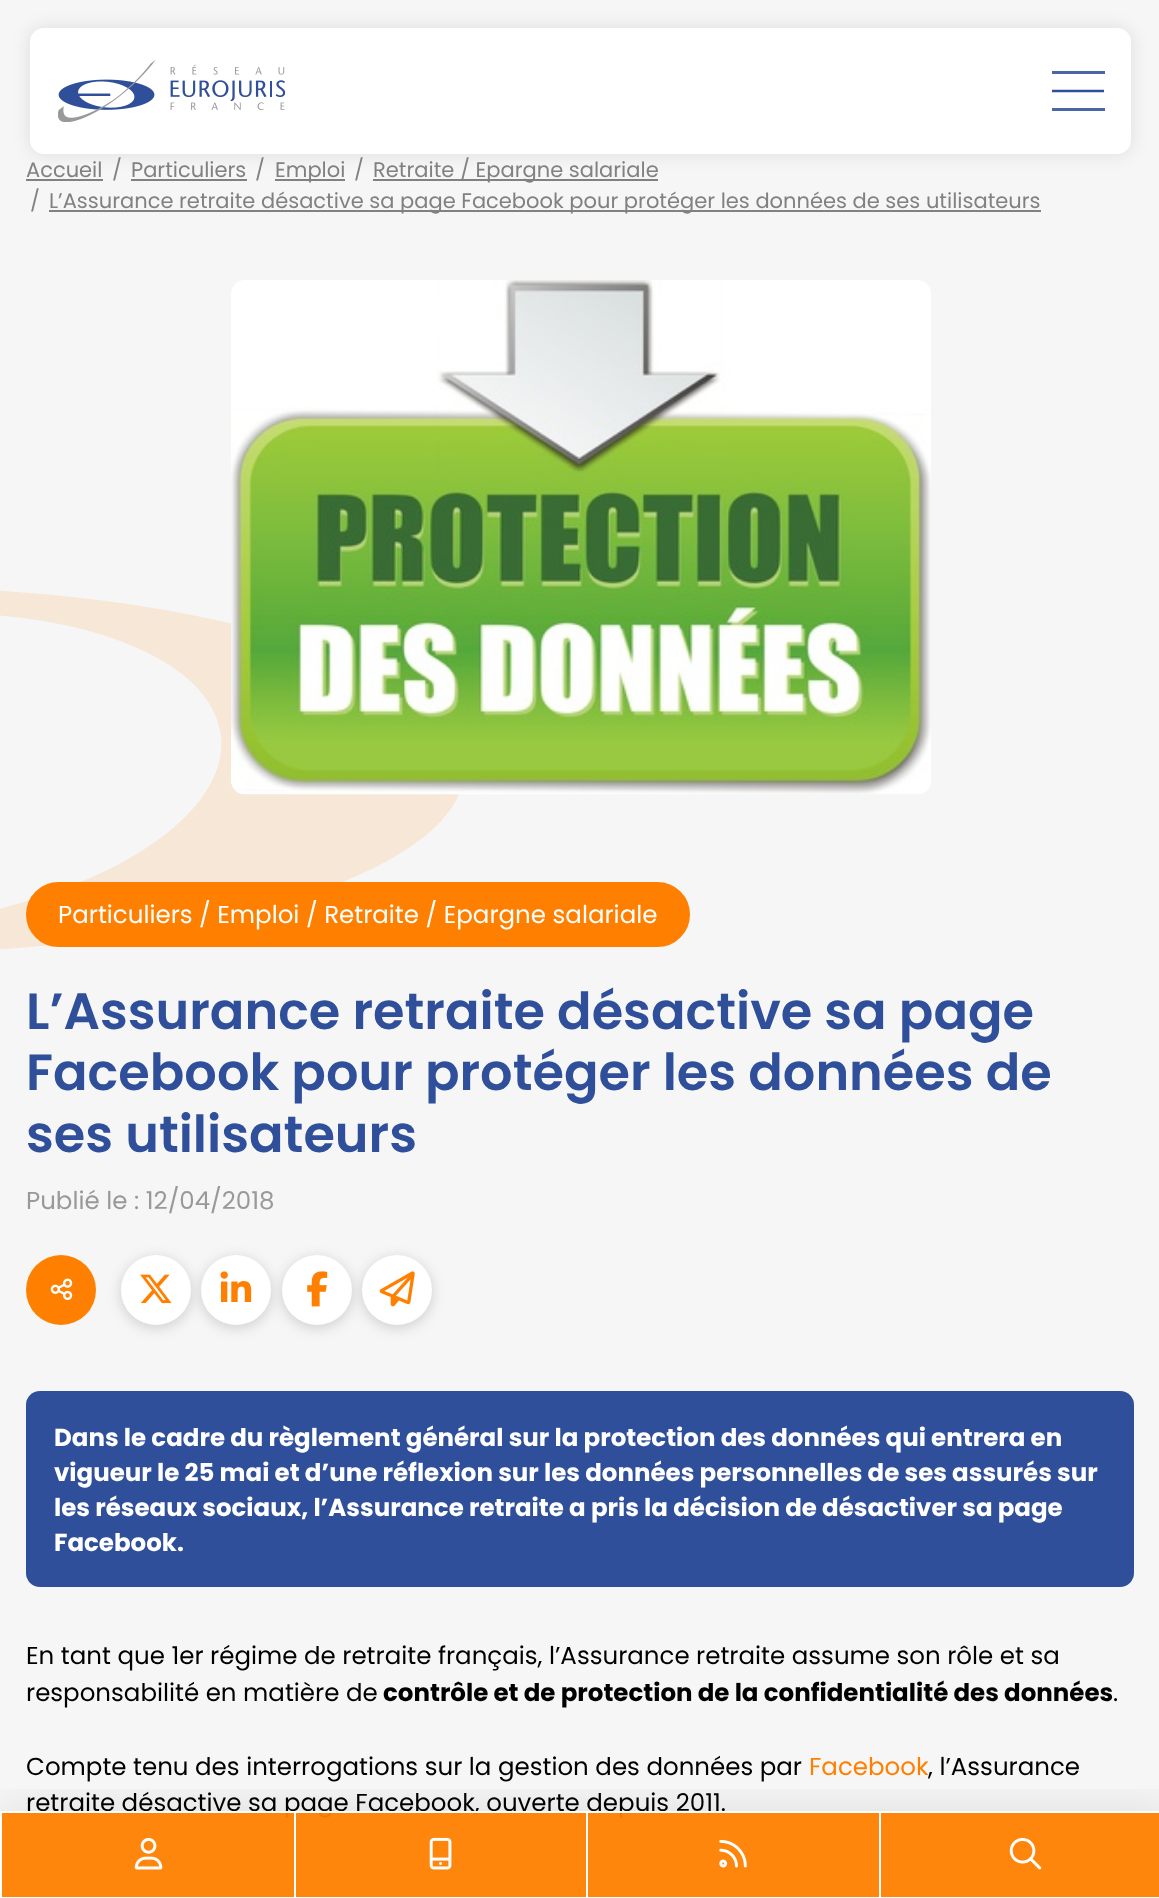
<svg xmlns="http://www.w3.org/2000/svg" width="1159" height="1898">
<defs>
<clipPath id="clip1"><rect x="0" y="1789" width="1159" height="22"/></clipPath>
</defs>
<rect width="100%" height="100%" fill="#f6f6f6"/>
<rect x="26" y="179" width="77" height="2" fill="#818181"/>
<rect x="131" y="179" width="116" height="2" fill="#818181"/>
<rect x="275" y="179" width="70" height="2" fill="#818181"/>
<rect x="373" y="179" width="285" height="2" fill="#818181"/>
<rect x="30" y="28" width="1101" height="126" rx="14" fill="#0000001a" filter="blur(9px)"/>
<rect x="30" y="28" width="1101" height="126" rx="14" fill="#fff"/>
<image x="58" y="60" width="227" height="62" href="media/1.png"/>
<rect x="1052" y="71" width="53" height="3" fill="#4b66a7"/>
<path d="M1052 91h52" fill="none" stroke="#2f4f9a" stroke-width="2.6"/>
<rect x="1052" y="108" width="53" height="3" fill="#4b66a7"/>
<text x="26" y="177" style="font-family:Poppins;font-size:21px;fill:#818181">Accueil</text>
<text x="112" y="177" style="font-family:Poppins;font-size:21px;fill:#818181">/</text>
<text x="131" y="177" style="font-family:Poppins;font-size:21px;fill:#818181">Particuliers</text>
<text x="255" y="177" style="font-family:Poppins;font-size:21px;fill:#818181">/</text>
<text x="275" y="177" style="font-family:Poppins;font-size:21px;fill:#818181">Emploi</text>
<text x="354" y="177" style="font-family:Poppins;font-size:21px;fill:#818181">/</text>
<text x="373" y="177" style="font-family:Poppins;font-size:21px;fill:#818181">Retraite / Epargne salariale</text>
<text x="30" y="208" style="font-family:Poppins;font-size:21px;fill:#818181">/</text>
<rect x="49" y="210" width="992" height="2" fill="#818181"/>
<text x="49" y="208" style="font-family:Poppins;font-size:21px;fill:#818181">L’Assurance retraite désactive sa page Facebook pour protéger les données de ses utilisateurs</text>
<path d="M-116 953c-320 0-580-82-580-183c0-101 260-183 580-183c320 0 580 82 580 183c0 101-260 183-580 183m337-217c-9-85-169-139-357-119c-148 15-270 72-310 137h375v30h-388c-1 8-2 16-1 23c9 86 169 139 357 120c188-20 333-105 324-191" fill="#f7e7d6"/>
<image x="231" y="280" width="700" height="515" href="media/2.png"/>
<rect x="28" y="884" width="660" height="61" rx="30.5" fill="#ff8000" stroke="#ff8000" stroke-width="4"/>
<text x="58" y="923" style="font-family:Poppins;font-size:24.5px;fill:#fff">Particuliers / Emploi / Retraite / Epargne salariale</text>
<text x="26" y="1029" style="font-family:Poppins;font-size:51px;font-weight:600;fill:#2f4f9a">L’Assurance retraite désactive sa page</text>
<text x="26" y="1090" style="font-family:Poppins;font-size:51px;font-weight:600;fill:#2f4f9a">Facebook pour protéger les données de</text>
<text x="26" y="1152" style="font-family:Poppins;font-size:51px;font-weight:600;fill:#2f4f9a">ses utilisateurs</text>
<text x="26" y="1209" style="font-family:Poppins;font-size:24.5px;fill:#999">Publié le : 12/04/2018</text>
<circle cx="61" cy="1290" r="35" fill="#ff8000"/>
<image x="50" y="1278" width="23" height="22" href="media/3.png"/>
<rect x="121" y="1258" width="70" height="70" rx="35" fill="#00000029" filter="blur(7px)"/>
<circle cx="156" cy="1290" r="35" fill="#fff"/>
<image x="140" y="1274" width="32" height="30" href="media/4.png"/>
<rect x="201" y="1258" width="70" height="70" rx="35" fill="#00000029" filter="blur(7px)"/>
<circle cx="236" cy="1290" r="35" fill="#fff"/>
<image x="220" y="1271" width="32" height="31" href="media/5.png"/>
<rect x="282" y="1258" width="70" height="70" rx="35" fill="#00000029" filter="blur(7px)"/>
<circle cx="317" cy="1290" r="35" fill="#fff"/>
<image x="307" y="1271" width="21" height="36" href="media/6.png"/>
<rect x="362" y="1258" width="70" height="70" rx="35" fill="#00000029" filter="blur(7px)"/>
<circle cx="397" cy="1290" r="35" fill="#fff"/>
<image x="379" y="1271" width="36" height="36" href="media/7.png"/>
<rect x="26" y="1391" width="1108" height="196" rx="14" fill="#2f4f9a"/>
<text x="54" y="1446" style="font-family:Poppins;font-size:24.5px;font-weight:bold;fill:#fff">Dans le cadre du règlement général sur la protection des données qui entrera en</text>
<text x="54" y="1481" style="font-family:Poppins;font-size:24.5px;font-weight:bold;fill:#fff">vigueur le 25 mai et d’une réflexion sur les données personnelles de ses assurés sur</text>
<text x="54" y="1516" style="font-family:Poppins;font-size:24.5px;font-weight:bold;fill:#fff">les réseaux sociaux, l’Assurance retraite a pris la décision de désactiver sa page</text>
<text x="54" y="1551" style="font-family:Poppins;font-size:24.5px;font-weight:bold;fill:#fff">Facebook.</text>
<text x="26" y="1664" style="font-family:Poppins;font-size:24.5px;fill:#000">En tant que 1er régime de retraite français, l’Assurance retraite assume son rôle et sa</text>
<text x="26" y="1701" style="font-family:Poppins;font-size:24.5px;fill:#000">responsabilité en matière de</text>
<text x="383" y="1701" style="font-family:Poppins;font-size:24.5px;font-weight:bold;fill:#000">contrôle et de protection de la confidentialité des données</text>
<text x="1113" y="1701" style="font-family:Poppins;font-size:24.5px;fill:#000">.</text>
<text x="26" y="1775" style="font-family:Poppins;font-size:24.5px;fill:#000">Compte tenu des interrogations sur la gestion des données par</text>
<text x="809" y="1775" style="font-family:Poppins;font-size:24.5px;fill:#ff8000">Facebook</text>
<text x="928" y="1775" style="font-family:Poppins;font-size:24.5px;fill:#000">, l’Assurance</text>
<text x="26" y="1811" style="font-family:Poppins;font-size:24.5px;fill:#000">retraite désactive sa page Facebook, ouverte depuis 2011.</text>
<g clip-path="url(#clip1)">
<rect y="1811" width="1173" height="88" fill="#0000001a" filter="blur(26px)"/>
</g>
<rect x="1" y="1812" width="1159" height="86" fill="#ff8000f2" stroke="#fff" stroke-width="2"/>
<image x="134" y="1837" width="29" height="33" href="media/8.png"/>
<rect x="294" y="1813" width="2" height="84" fill="#fff"/>
<image x="429" y="1837" width="23" height="33" href="media/9.png"/>
<rect x="586" y="1813" width="2" height="84" fill="#fff"/>
<image x="719" y="1839" width="28" height="29" href="media/10.png"/>
<rect x="879" y="1813" width="2" height="84" fill="#fff"/>
<image x="1009" y="1837" width="33" height="33" href="media/11.png"/>
</svg>
